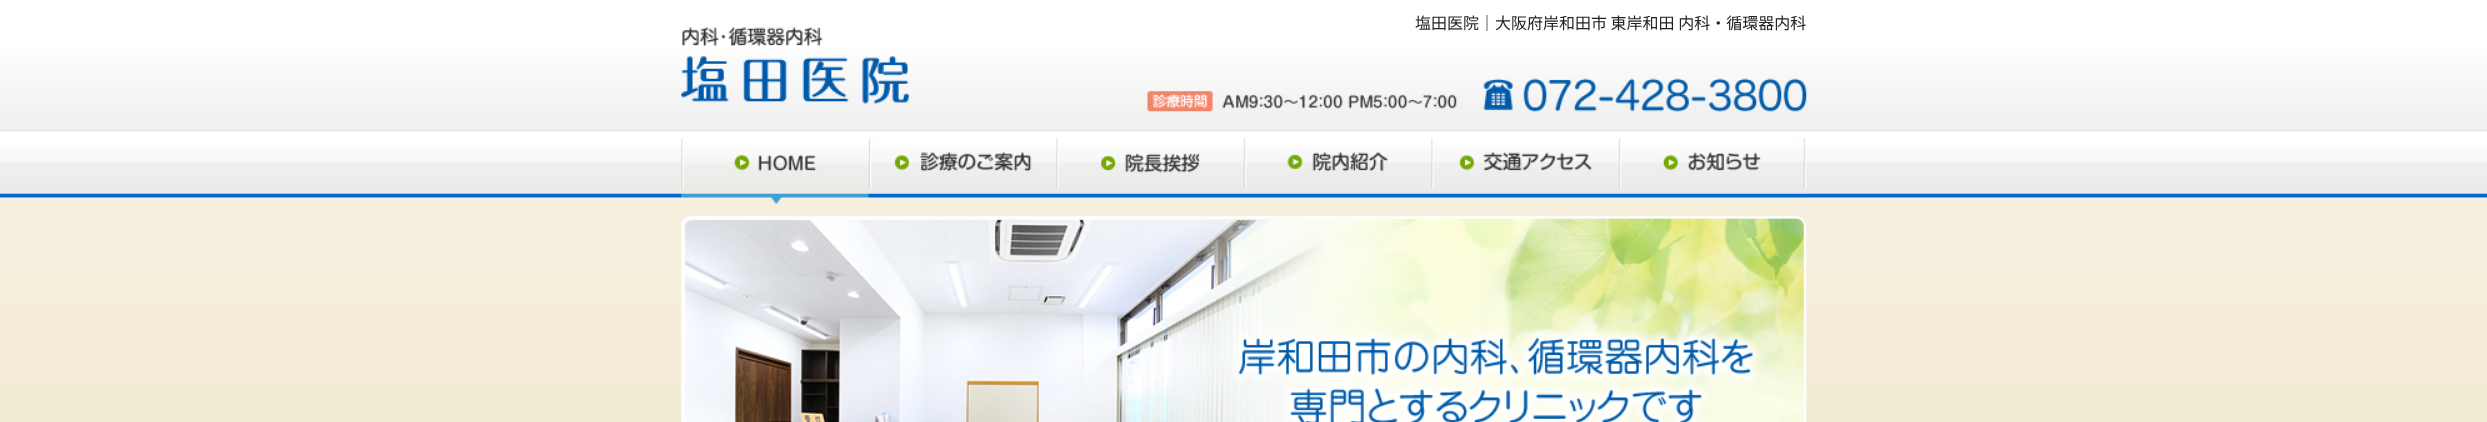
<svg xmlns="http://www.w3.org/2000/svg" width="2487" height="422">
<rect width="100%" height="100%" fill="#fff"/>
<image x="0" y="0" width="2487" height="130" href="media/1.png"/>
<image x="681" y="27" width="228" height="77" href="media/2.png"/>
<image x="1147" y="91" width="310" height="21" href="media/3.png"/>
<image x="1483" y="78" width="324" height="34" href="media/4.png"/>
<image x="0" y="130" width="2487" height="74" href="media/5.png"/>
<image x="681" y="138" width="188" height="66" href="media/6.png"/>
<image x="868" y="138" width="188" height="66" href="media/7.png"/>
<image x="1056" y="138" width="188" height="66" href="media/8.png"/>
<image x="1243" y="138" width="188" height="66" href="media/9.png"/>
<image x="1431" y="138" width="188" height="66" href="media/10.png"/>
<image x="1618" y="138" width="189" height="66" href="media/11.png"/>
<text x="1415" y="29" style="font-family:Noto Sans JP;font-size:16px;fill:#222">塩田医院｜大阪府岸和田市 東岸和田 内科・循環器内科</text>
<image x="0" y="204" width="2487" height="218" href="media/12.png"/>
<image x="681" y="216" width="1126" height="206" href="media/13.png"/>
</svg>
